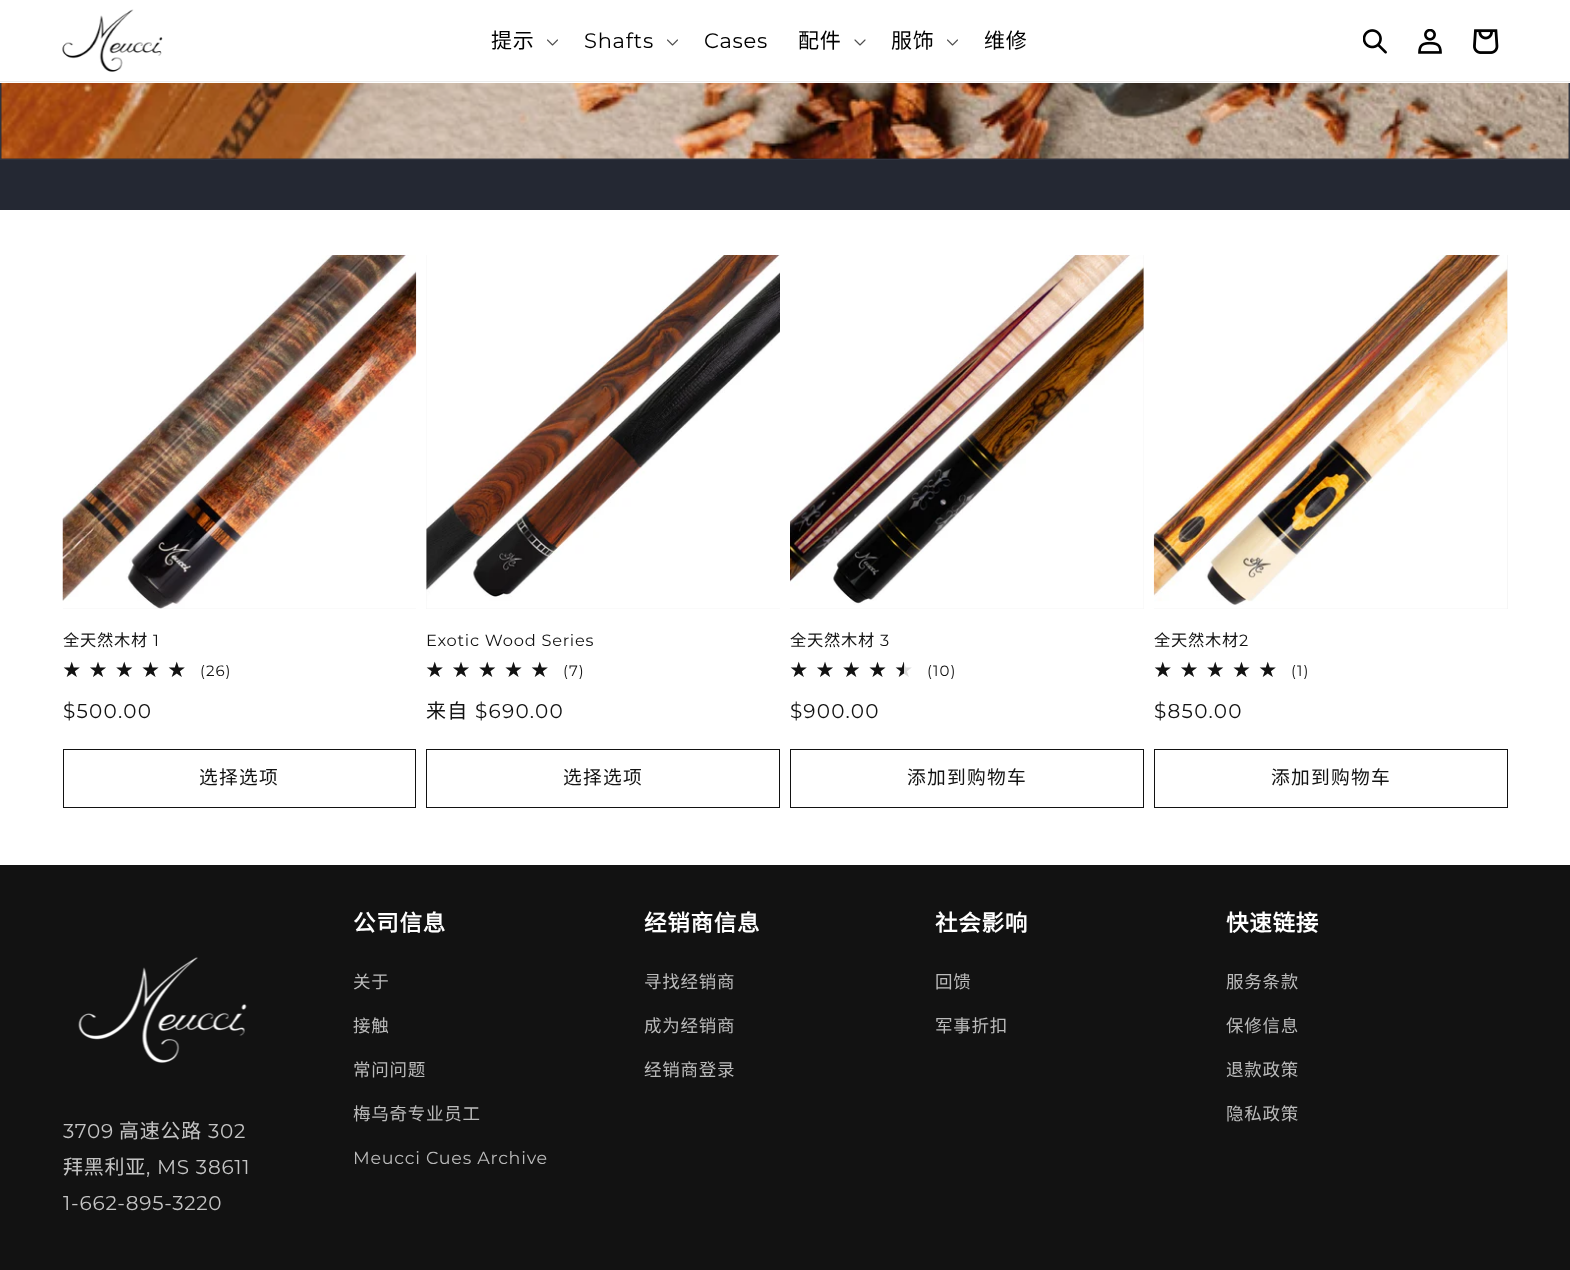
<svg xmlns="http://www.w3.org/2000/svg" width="1570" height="1270">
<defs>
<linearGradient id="g1" gradientUnits="userSpaceOnUse" x1="63" y1="670" x2="194" y2="670"><stop offset="0.93" stop-color="#121212"/><stop offset="0.93" stop-color="#dbdbdb"/></linearGradient>
<linearGradient id="g2" gradientUnits="userSpaceOnUse" x1="426" y1="670" x2="558" y2="670"><stop offset="0.93" stop-color="#121212"/><stop offset="0.93" stop-color="#dbdbdb"/></linearGradient>
<linearGradient id="g3" gradientUnits="userSpaceOnUse" x1="790" y1="670" x2="921" y2="670"><stop offset="0.87" stop-color="#121212"/><stop offset="0.87" stop-color="#dbdbdb"/></linearGradient>
<linearGradient id="g4" gradientUnits="userSpaceOnUse" x1="1154" y1="670" x2="1285" y2="670"><stop offset="1" stop-color="#121212"/><stop offset="1" stop-color="#dbdbdb"/></linearGradient>
</defs>
<rect width="100%" height="100%" fill="#fff"/>
<rect y="83" width="1570" height="127" fill="#242833"/>
<rect x="0.5" y="-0.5" width="1569" height="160" fill="none" stroke="#2f333d"/>
<rect width="1570" height="83" fill="#fff"/>
<rect y="81" width="1570" height="1" fill="#ececec"/>
<image x="62" y="9" width="101" height="63" href="media/1.png"/>
<text x="491" y="48" style="font-family:Noto Sans CJK SC;font-size:21px;letter-spacing:0.75px;fill:#000">提示</text>
<image x="547" y="39" width="11" height="7" href="media/2.png"/>
<text x="584" y="48" style="font-family:Montserrat;font-size:21px;letter-spacing:0.75px;fill:#000">Shafts</text>
<image x="667" y="39" width="11" height="7" href="media/2.png"/>
<text x="704" y="48" style="font-family:Montserrat;font-size:21px;letter-spacing:0.75px;fill:#000">Cases</text>
<text x="798" y="48" style="font-family:Noto Sans CJK SC;font-size:21px;letter-spacing:0.75px;fill:#000">配件</text>
<image x="854" y="39" width="12" height="7" href="media/3.png"/>
<text x="891" y="48" style="font-family:Noto Sans CJK SC;font-size:21px;letter-spacing:0.75px;fill:#000">服饰</text>
<image x="947" y="39" width="11" height="7" href="media/2.png"/>
<text x="984" y="48" style="font-family:Noto Sans CJK SC;font-size:21px;letter-spacing:0.75px;fill:#000">维修</text>
<image x="1363" y="29" width="24" height="25" href="media/4.png"/>
<image x="1418" y="29" width="24" height="25" href="media/5.png"/>
<image x="1473" y="29" width="26" height="25" href="media/6.png"/>
<image x="1" y="83" width="1568" height="76" href="media/7.png"/>
<rect x="63" y="608" width="353" height="1" fill="#f3f3f3"/>
<image x="62" y="255" width="355" height="354" href="media/8.png"/>
<text x="63" y="646" style="font-family:Noto Sans CJK SC;font-size:16.25px;letter-spacing:0.75px;fill:#121212">全天然木材</text>
<text x="153" y="646" style="font-family:Montserrat;font-size:16.25px;letter-spacing:0.75px;fill:#121212">1</text>
<text x="63" y="676" style="font-family:Noto Sans CJK SC;font-size:17.5px;letter-spacing:8.75px;fill:url(#g1)">★★★★★</text>
<text x="200" y="676" style="font-family:Montserrat;font-size:15px;letter-spacing:1px;fill:#121212">(26)</text>
<text x="63" y="718" style="font-family:Montserrat;font-size:20px;letter-spacing:1.25px;fill:#121212">$500.00</text>
<rect x="63.5" y="749.5" width="352" height="58" fill="none" stroke="#121212"/>
<text x="199" y="784" style="font-family:Noto Sans CJK SC;font-size:18.75px;letter-spacing:1.25px;fill:#121212">选择选项</text>
<rect x="426" y="255" width="354" height="354" fill="#f3f3f3"/>
<image x="426" y="255" width="354" height="354" href="media/9.png"/>
<text x="426" y="646" style="font-family:Montserrat;font-size:16.25px;letter-spacing:0.75px;fill:#121212">Exotic Wood Series</text>
<text x="426" y="676" style="font-family:Noto Sans CJK SC;font-size:17.5px;letter-spacing:8.75px;fill:url(#g2)">★★★★★</text>
<text x="563" y="676" style="font-family:Montserrat;font-size:15px;letter-spacing:1px;fill:#121212">(7)</text>
<text x="426" y="718" style="font-family:Noto Sans CJK SC;font-size:20px;letter-spacing:1.25px;fill:#121212">来自</text>
<text x="475" y="718" style="font-family:Montserrat;font-size:20px;letter-spacing:1.25px;fill:#121212">$690.00</text>
<rect x="426.5" y="749.5" width="353" height="58" fill="none" stroke="#121212"/>
<text x="563" y="784" style="font-family:Noto Sans CJK SC;font-size:18.75px;letter-spacing:1.25px;fill:#121212">选择选项</text>
<rect x="790" y="255" width="354" height="354" fill="#f3f3f3"/>
<image x="790" y="255" width="354" height="354" href="media/10.png"/>
<text x="790" y="646" style="font-family:Noto Sans CJK SC;font-size:16.25px;letter-spacing:0.75px;fill:#121212">全天然木材</text>
<text x="880" y="646" style="font-family:Montserrat;font-size:16.25px;letter-spacing:0.75px;fill:#121212">3</text>
<text x="790" y="676" style="font-family:Noto Sans CJK SC;font-size:17.5px;letter-spacing:8.75px;fill:url(#g3)">★★★★★</text>
<text x="927" y="676" style="font-family:Montserrat;font-size:15px;letter-spacing:1px;fill:#121212">(10)</text>
<text x="790" y="718" style="font-family:Montserrat;font-size:20px;letter-spacing:1.25px;fill:#121212">$900.00</text>
<rect x="790.5" y="749.5" width="353" height="58" fill="none" stroke="#121212"/>
<text x="907" y="784" style="font-family:Noto Sans CJK SC;font-size:18.75px;letter-spacing:1.25px;fill:#121212">添加到购物车</text>
<rect x="1154" y="255" width="354" height="354" fill="#f3f3f3"/>
<image x="1153" y="255" width="355" height="354" href="media/11.png"/>
<text x="1154" y="646" style="font-family:Noto Sans CJK SC;font-size:16.25px;letter-spacing:0.75px;fill:#121212">全天然木材</text>
<text x="1239" y="646" style="font-family:Montserrat;font-size:16.25px;letter-spacing:0.75px;fill:#121212">2</text>
<text x="1154" y="676" style="font-family:Noto Sans CJK SC;font-size:17.5px;letter-spacing:8.75px;fill:url(#g4)">★★★★★</text>
<text x="1291" y="676" style="font-family:Montserrat;font-size:15px;letter-spacing:1px;fill:#121212">(1)</text>
<text x="1154" y="718" style="font-family:Montserrat;font-size:20px;letter-spacing:1.25px;fill:#121212">$850.00</text>
<rect x="1154.5" y="749.5" width="353" height="58" fill="none" stroke="#121212"/>
<text x="1271" y="784" style="font-family:Noto Sans CJK SC;font-size:18.75px;letter-spacing:1.25px;fill:#121212">添加到购物车</text>
<rect y="865" width="1570" height="405" fill="#121212"/>
<text x="353" y="931" style="font-family:Noto Sans CJK SC;font-size:22.5px;font-weight:bold;letter-spacing:0.75px;fill:#fff">公司信息</text>
<text x="353" y="988" style="font-family:Noto Sans CJK SC;font-size:17.5px;letter-spacing:0.75px;fill:#bbb">关于</text>
<text x="353" y="1032" style="font-family:Noto Sans CJK SC;font-size:17.5px;letter-spacing:0.75px;fill:#bbb">接触</text>
<text x="353" y="1076" style="font-family:Noto Sans CJK SC;font-size:17.5px;letter-spacing:0.75px;fill:#bbb">常问问题</text>
<text x="353" y="1120" style="font-family:Noto Sans CJK SC;font-size:17.5px;letter-spacing:0.75px;fill:#bbb">梅乌奇专业员工</text>
<text x="353" y="1164" style="font-family:Montserrat;font-size:17.5px;letter-spacing:0.75px;fill:#bbb">Meucci Cues Archive</text>
<text x="644" y="931" style="font-family:Noto Sans CJK SC;font-size:22.5px;font-weight:bold;letter-spacing:0.75px;fill:#fff">经销商信息</text>
<text x="644" y="988" style="font-family:Noto Sans CJK SC;font-size:17.5px;letter-spacing:0.75px;fill:#bbb">寻找经销商</text>
<text x="644" y="1032" style="font-family:Noto Sans CJK SC;font-size:17.5px;letter-spacing:0.75px;fill:#bbb">成为经销商</text>
<text x="644" y="1076" style="font-family:Noto Sans CJK SC;font-size:17.5px;letter-spacing:0.75px;fill:#bbb">经销商登录</text>
<text x="935" y="931" style="font-family:Noto Sans CJK SC;font-size:22.5px;font-weight:bold;letter-spacing:0.75px;fill:#fff">社会影响</text>
<text x="935" y="988" style="font-family:Noto Sans CJK SC;font-size:17.5px;letter-spacing:0.75px;fill:#bbb">回馈</text>
<text x="935" y="1032" style="font-family:Noto Sans CJK SC;font-size:17.5px;letter-spacing:0.75px;fill:#bbb">军事折扣</text>
<text x="1226" y="931" style="font-family:Noto Sans CJK SC;font-size:22.5px;font-weight:bold;letter-spacing:0.75px;fill:#fff">快速链接</text>
<text x="1226" y="988" style="font-family:Noto Sans CJK SC;font-size:17.5px;letter-spacing:0.75px;fill:#bbb">服务条款</text>
<text x="1226" y="1032" style="font-family:Noto Sans CJK SC;font-size:17.5px;letter-spacing:0.75px;fill:#bbb">保修信息</text>
<text x="1226" y="1076" style="font-family:Noto Sans CJK SC;font-size:17.5px;letter-spacing:0.75px;fill:#bbb">退款政策</text>
<text x="1226" y="1120" style="font-family:Noto Sans CJK SC;font-size:17.5px;letter-spacing:0.75px;fill:#bbb">隐私政策</text>
<image x="78" y="957" width="169" height="106" href="media/12.png"/>
<text x="63" y="1138" style="font-family:Montserrat;font-size:20px;letter-spacing:0.75px;fill:#c4c4c4">3709</text>
<text x="119" y="1138" style="font-family:Noto Sans CJK SC;font-size:20px;letter-spacing:0.75px;fill:#c4c4c4">高速公路</text>
<text x="208" y="1138" style="font-family:Montserrat;font-size:20px;letter-spacing:0.75px;fill:#c4c4c4">302</text>
<text x="63" y="1174" style="font-family:Noto Sans CJK SC;font-size:20px;letter-spacing:0.75px;fill:#c4c4c4">拜黑利亚</text>
<text x="146" y="1174" style="font-family:Montserrat;font-size:20px;letter-spacing:0.75px;fill:#c4c4c4">, MS 38611</text>
<text x="63" y="1210" style="font-family:Montserrat;font-size:20px;letter-spacing:0.75px;fill:#c4c4c4">1-662-895-3220</text>
</svg>
